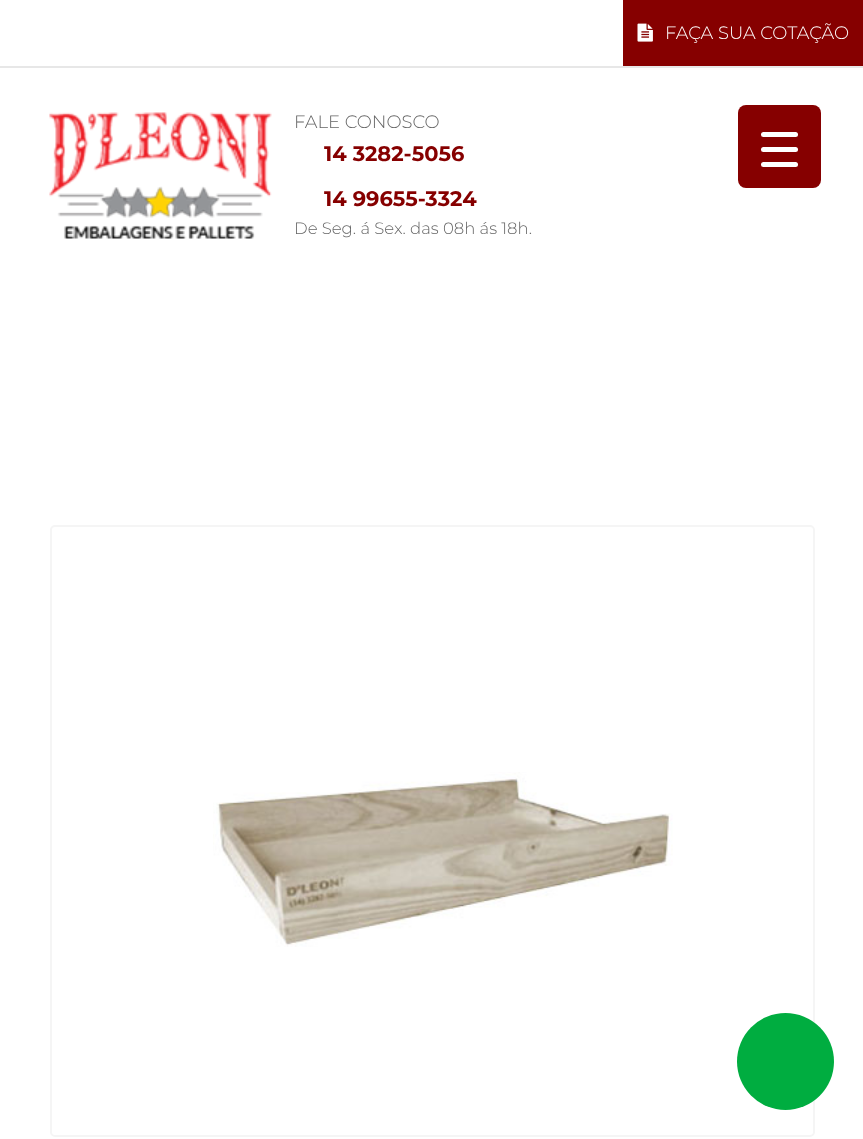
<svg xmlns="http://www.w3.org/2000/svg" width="863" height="1139">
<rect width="100%" height="100%" fill="#fff"/>
<rect y="66" width="863" height="2" fill="#e7e7e7"/>
<rect x="623" width="240" height="66" fill="#860000"/>
<image x="637" y="23" width="16" height="19" href="media/1.png"/>
<text x="665" y="39" style="font-family:Montserrat;font-size:18px;font-weight:300;fill:#fff">FAÇA SUA COTAÇÃO</text>
<image x="49" y="112" width="223" height="127" href="media/2.png"/>
<text x="294" y="128" style="font-family:Montserrat;font-size:18px;font-weight:300;fill:#666">FALE CONOSCO</text>
<text x="324" y="161" style="font-family:Montserrat;font-size:21px;font-weight:bold;fill:#860000">14 3282-5056</text>
<text x="324" y="206" style="font-family:Montserrat;font-size:21px;font-weight:bold;fill:#860000">14 99655-3324</text>
<text x="294" y="234" style="font-family:Montserrat;font-size:16.5px;font-weight:300;fill:#666">De Seg. á Sex. das 08h ás 18h.</text>
<rect x="51" y="526" width="763" height="610" rx="4" fill="none" stroke="#f5f5f5" stroke-width="2"/>
<image x="213" y="772" width="460" height="175" href="media/3.png"/>
<circle cx="785.5" cy="1061.5" r="48.5" fill="#00ad40"/>
<rect x="738" y="105" width="83" height="83" rx="8" fill="#860000"/>
<rect x="761" y="147" width="37" height="5" rx="2.5" fill="#fff"/>
<rect x="761" y="132" width="37" height="5" rx="2.5" fill="#fff"/>
<rect x="761" y="162" width="37" height="5" rx="2.5" fill="#fff"/>
</svg>
